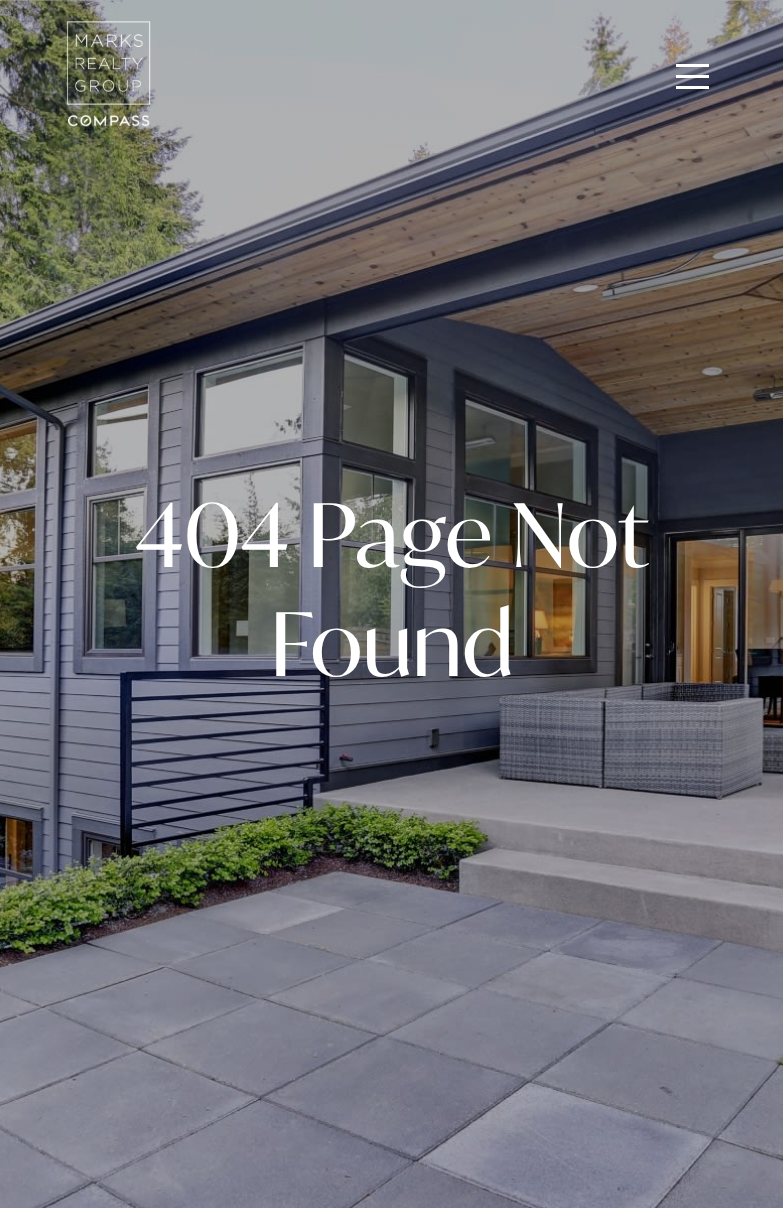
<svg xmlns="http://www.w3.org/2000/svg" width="783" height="1208">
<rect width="100%" height="100%" fill="#fff"/>
<image x="0" y="0" width="783" height="1208" href="media/2.png"/>
<image x="67" y="21" width="84" height="106" href="media/1.png"/>
<rect x="676" y="75" width="33" height="3" fill="#fff"/>
<rect x="676" y="64" width="33" height="3" fill="#fff"/>
<rect x="676" y="86" width="33" height="3" fill="#fff"/>
<text x="136" y="567" style="font-family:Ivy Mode;font-size:87.5px;fill:#fff">404 Page Not</text>
<text x="270" y="676" style="font-family:Ivy Mode;font-size:87.5px;fill:#fff">Found</text>
</svg>
